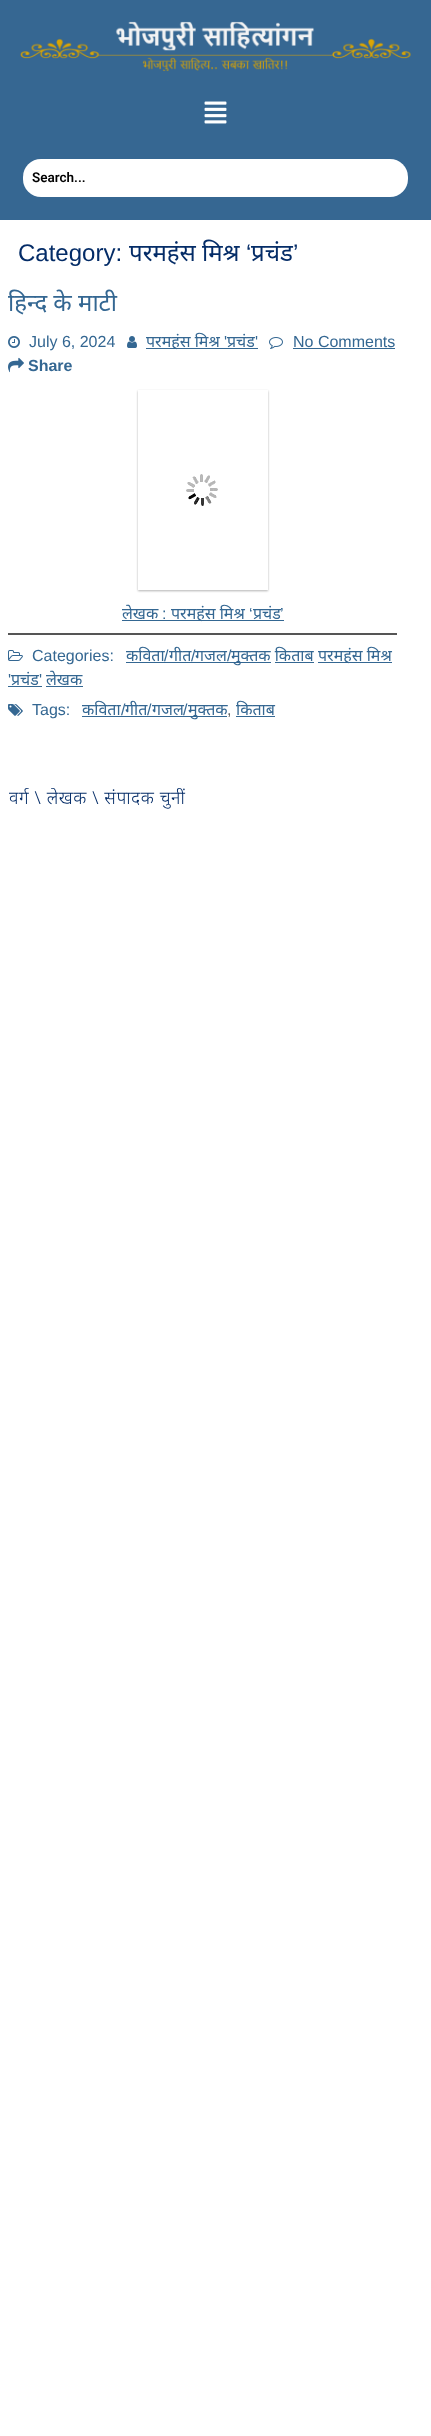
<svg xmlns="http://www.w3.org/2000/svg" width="431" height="2436">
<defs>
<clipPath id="clip1"><path d="M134 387h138v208h-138zm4 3h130v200h-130z" clip-rule="evenodd"/></clipPath>
</defs>
<rect width="100%" height="100%" fill="#fff"/>
<rect width="431" height="220" fill="#366792"/>
<image x="20" y="21" width="391" height="51" href="media/1.png"/>
<image x="204" y="101" width="23" height="23" href="media/2.png"/>
<rect x="23" y="159" width="385" height="38" rx="18" fill="#fff"/>
<text x="32" y="182" style="font-family:Roboto;font-size:13.5px;font-weight:600;fill:#000">Search...</text>
<text x="18" y="261" style="font-family:Liberation Sans;font-size:24px;fill:#042c67">Category:</text>
<text x="129" y="261" style="font-family:Noto Sans;font-size:24px;fill:#042c67">परमहंस मिश्र</text>
<text x="246" y="261" style="font-family:Liberation Sans;font-size:24px;fill:#042c67">‘</text>
<text x="251" y="261" style="font-family:Noto Sans;font-size:24px;fill:#042c67">प्रचंड</text>
<text x="293" y="261" style="font-family:Liberation Sans;font-size:24px;fill:#042c67">’</text>
<text x="8" y="311" style="font-family:Noto Sans;font-size:24px;fill:#346792">हिन्द के माटी</text>
<image x="8" y="336" width="12" height="12" href="media/3.png"/>
<text x="29" y="347" style="font-family:Liberation Sans;font-size:16px;fill:#346792">July 6, 2024</text>
<image x="127" y="336" width="10" height="12" href="media/4.png"/>
<rect x="146" y="348" width="112" height="1" fill="#346792"/>
<text x="146" y="347" style="font-family:Noto Sans;font-size:16px;fill:#346792">परमहंस मिश्र</text>
<text x="224" y="347" style="font-family:Liberation Sans;font-size:16px;fill:#346792">'</text>
<text x="227" y="347" style="font-family:Noto Sans;font-size:16px;fill:#346792">प्रचंड</text>
<text x="255" y="347" style="font-family:Liberation Sans;font-size:16px;fill:#346792">'</text>
<image x="269" y="337" width="14" height="12" href="media/5.png"/>
<text x="293" y="347" style="font-family:Liberation Sans;font-size:16px;fill:#346792">No Comments</text>
<rect x="293" y="348" width="102" height="1" fill="#346792"/>
<image x="8" y="357" width="16" height="16" href="media/6.png"/>
<text x="28" y="371" style="font-family:Liberation Sans;font-size:16px;font-weight:bold;fill:#346792">Share</text>
<g clip-path="url(#clip1)">
<rect x="138" y="391" width="130" height="200" fill="#0000004d" filter="blur(1px)"/>
</g>
<image x="186" y="474" width="32" height="32" href="media/7.png"/>
<text x="122" y="619" style="font-family:Noto Sans;font-size:16px;fill:#346792">लेखक</text>
<text x="162" y="619" style="font-family:Liberation Sans;font-size:16px;fill:#346792">:</text>
<rect x="122" y="620" width="162" height="1" fill="#346792"/>
<text x="171" y="619" style="font-family:Noto Sans;font-size:16px;fill:#346792">परमहंस मिश्र</text>
<text x="249" y="619" style="font-family:Liberation Sans;font-size:16px;fill:#346792">‘</text>
<text x="253" y="619" style="font-family:Noto Sans;font-size:16px;fill:#346792">प्रचंड</text>
<text x="280" y="619" style="font-family:Liberation Sans;font-size:16px;fill:#346792">’</text>
<rect x="8" y="633" width="389" height="2" fill="#555"/>
<text x="32" y="661" style="font-family:Liberation Sans;font-size:16px;fill:#346792">Categories:</text>
<text x="126" y="661" style="font-family:Noto Sans;font-size:16px;fill:#346792">कविता</text>
<text x="164" y="661" style="font-family:Liberation Sans;font-size:16px;fill:#346792">/</text>
<text x="169" y="661" style="font-family:Noto Sans;font-size:16px;fill:#346792">गीत</text>
<text x="191" y="661" style="font-family:Liberation Sans;font-size:16px;fill:#346792">/</text>
<text x="195" y="661" style="font-family:Noto Sans;font-size:16px;fill:#346792">गजल</text>
<rect x="126" y="662" width="145" height="1" fill="#346792"/>
<text x="227" y="661" style="font-family:Liberation Sans;font-size:16px;fill:#346792">/</text>
<text x="231" y="661" style="font-family:Noto Sans;font-size:16px;fill:#346792">मुक्तक किताब</text>
<rect x="318" y="662" width="74" height="1" fill="#346792"/>
<text x="318" y="661" style="font-family:Noto Sans;font-size:16px;fill:#346792">परमहंस मिश्र</text>
<image x="8" y="650" width="15" height="11" href="media/8.png"/>
<rect x="275" y="662" width="39" height="1" fill="#346792"/>
<text x="8" y="685" style="font-family:Liberation Sans;font-size:16px;fill:#346792">'</text>
<text x="11" y="685" style="font-family:Noto Sans;font-size:16px;fill:#346792">प्रचंड</text>
<rect x="8" y="686" width="34" height="1" fill="#346792"/>
<text x="39" y="685" style="font-family:Liberation Sans;font-size:16px;fill:#346792">'</text>
<text x="46" y="685" style="font-family:Noto Sans;font-size:16px;fill:#346792">लेखक</text>
<rect x="46" y="686" width="37" height="1" fill="#346792"/>
<text x="82" y="715" style="font-family:Noto Sans;font-size:16px;fill:#346792">कविता</text>
<text x="121" y="715" style="font-family:Liberation Sans;font-size:16px;fill:#346792">/</text>
<text x="125" y="715" style="font-family:Noto Sans;font-size:16px;fill:#346792">गीत</text>
<text x="236" y="715" style="font-family:Noto Sans;font-size:16px;fill:#346792">किताब</text>
<rect x="236" y="716" width="39" height="1" fill="#346792"/>
<image x="8" y="704" width="15" height="12" href="media/9.png"/>
<text x="32" y="715" style="font-family:Liberation Sans;font-size:16px;fill:#346792">Tags:</text>
<text x="147" y="715" style="font-family:Liberation Sans;font-size:16px;fill:#346792">/</text>
<text x="152" y="715" style="font-family:Noto Sans;font-size:16px;fill:#346792">गजल</text>
<text x="183" y="715" style="font-family:Liberation Sans;font-size:16px;fill:#346792">/</text>
<rect x="82" y="716" width="145" height="1" fill="#346792"/>
<text x="188" y="715" style="font-family:Noto Sans;font-size:16px;fill:#346792">मुक्तक</text>
<text x="227" y="715" style="font-family:Liberation Sans;font-size:16px;fill:#666">,</text>
<text x="9" y="804" word-spacing="0.25" style="font-family:Noto Sans;font-size:18px;font-weight:300;letter-spacing:0.5px;fill:#042c67">वर्ग \ लेखक \ संपादक चुनीं</text>
</svg>
